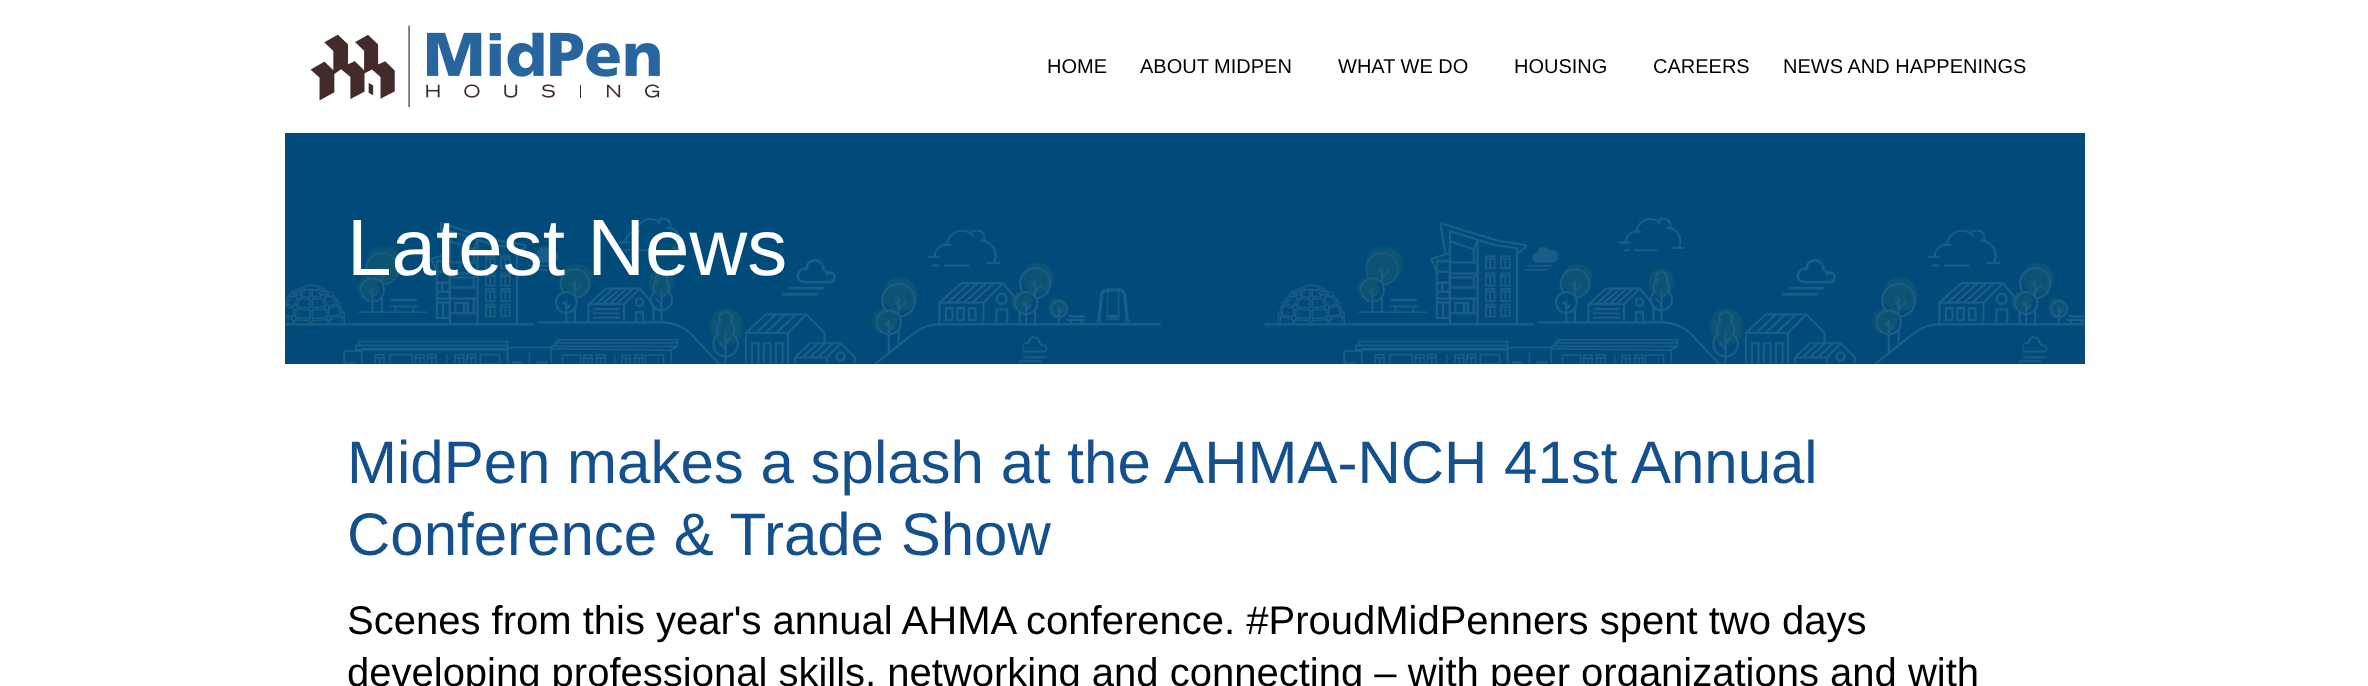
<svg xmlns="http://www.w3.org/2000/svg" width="2368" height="686">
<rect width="100%" height="100%" fill="#fff"/>
<image x="310" y="25" width="350" height="82" href="media/1.png"/>
<text x="1047" y="73" style="font-family:Liberation Sans;font-size:20px;fill:#000">HOME</text>
<text x="1140" y="73" style="font-family:Liberation Sans;font-size:20px;fill:#000">ABOUT MIDPEN</text>
<text x="1338" y="73" style="font-family:Liberation Sans;font-size:20px;fill:#000">WHAT WE DO</text>
<text x="1514" y="73" style="font-family:Liberation Sans;font-size:20px;fill:#000">HOUSING</text>
<text x="1653" y="73" style="font-family:Liberation Sans;font-size:20px;fill:#000">CAREERS</text>
<text x="1783" y="73" style="font-family:Liberation Sans;font-size:20px;fill:#000">NEWS AND HAPPENINGS</text>
<rect x="285" y="133" width="1800" height="231" fill="#004b79"/>
<image x="285" y="217" width="1800" height="147" href="media/2.png"/>
<text x="347" y="275" style="font-family:Liberation Sans;font-size:80px;fill:#fff">Latest News</text>
<text x="347" y="483" style="font-family:Liberation Sans;font-size:60px;fill:#15508e">MidPen makes a splash at the AHMA-NCH 41st Annual</text>
<text x="347" y="555" style="font-family:Liberation Sans;font-size:60px;fill:#15508e">Conference &amp; Trade Show</text>
<text x="347" y="634" style="font-family:Liberation Sans;font-size:40px;fill:#000">Scenes from this year's annual AHMA conference. #ProudMidPenners spent two days</text>
<text x="347" y="686" style="font-family:Liberation Sans;font-size:40px;fill:#000">developing professional skills, networking and connecting – with peer organizations and with</text>
</svg>
